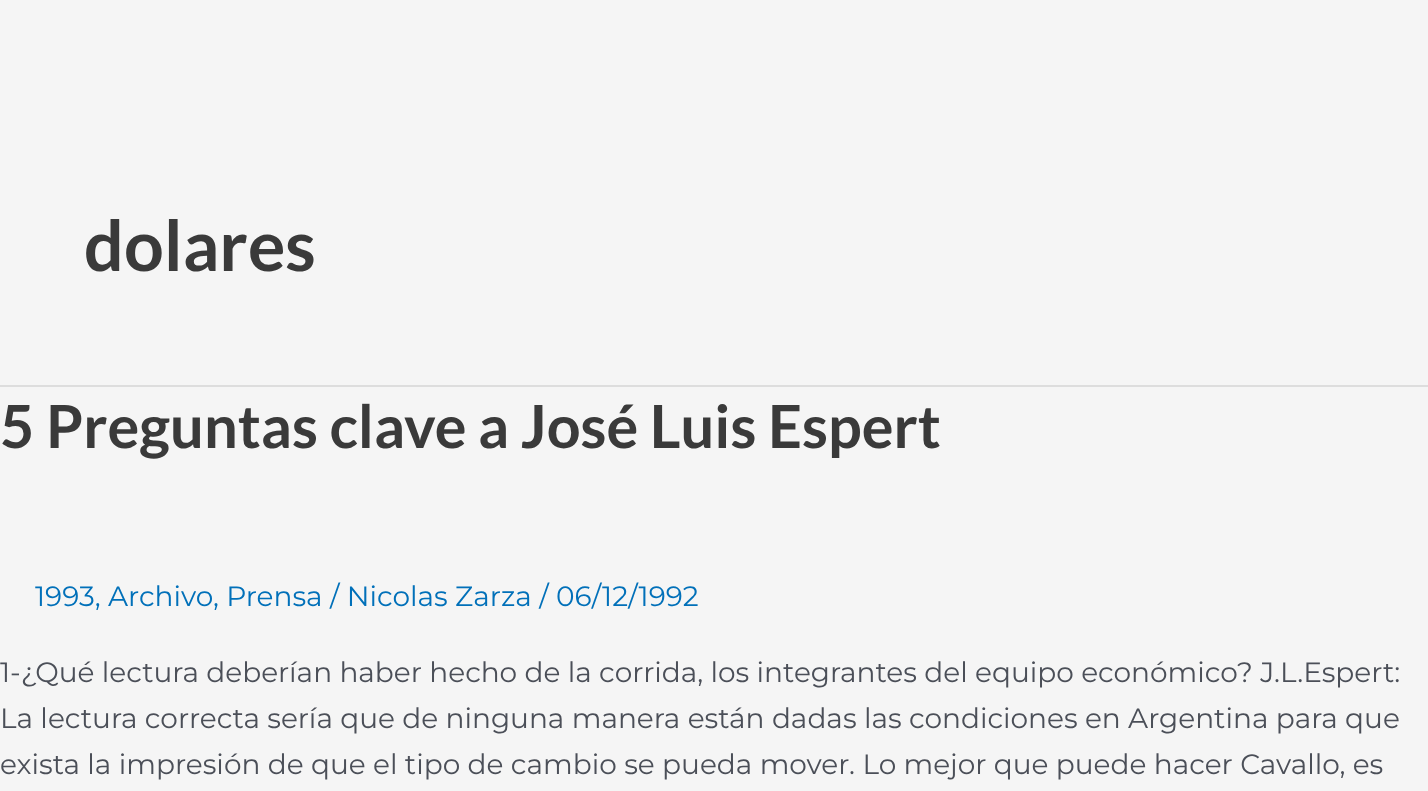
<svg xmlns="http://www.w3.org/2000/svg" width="1428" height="791">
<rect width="100%" height="100%" fill="#f5f5f5"/>
<rect y="385" width="1428" height="2" fill="#ddd"/>
<text x="84" y="271" style="font-family:Lato;font-size:70px;font-weight:bold;fill:#3a3a3a">dolares</text>
<text x="0" y="448" style="font-family:Lato;font-size:59.5px;font-weight:bold;fill:#3a3a3a">5 Preguntas clave a José Luis Espert</text>
<text x="35" y="606" style="font-family:Montserrat;font-size:28px;fill:#0170b9">1993, Archivo</text>
<text x="213" y="606" style="font-family:Montserrat;font-size:28px;fill:#0170b9">, Prensa / Nicolas Zarza / 06/12/1992</text>
<text x="0" y="682" style="font-family:Montserrat;font-size:28px;fill:#4b4f58">1-¿Qué lectura deberían haber hecho de la corrida, los integrantes del equipo económico? J.L.Espert:</text>
<text x="0" y="728" style="font-family:Montserrat;font-size:28px;fill:#4b4f58">La lectura correcta sería que de ninguna manera están dadas las condiciones en Argentina para que</text>
<text x="0" y="774" style="font-family:Montserrat;font-size:28px;fill:#4b4f58">exista la impresión de que el tipo de cambio se pueda mover. Lo mejor que puede hacer Cavallo, es</text>
</svg>
